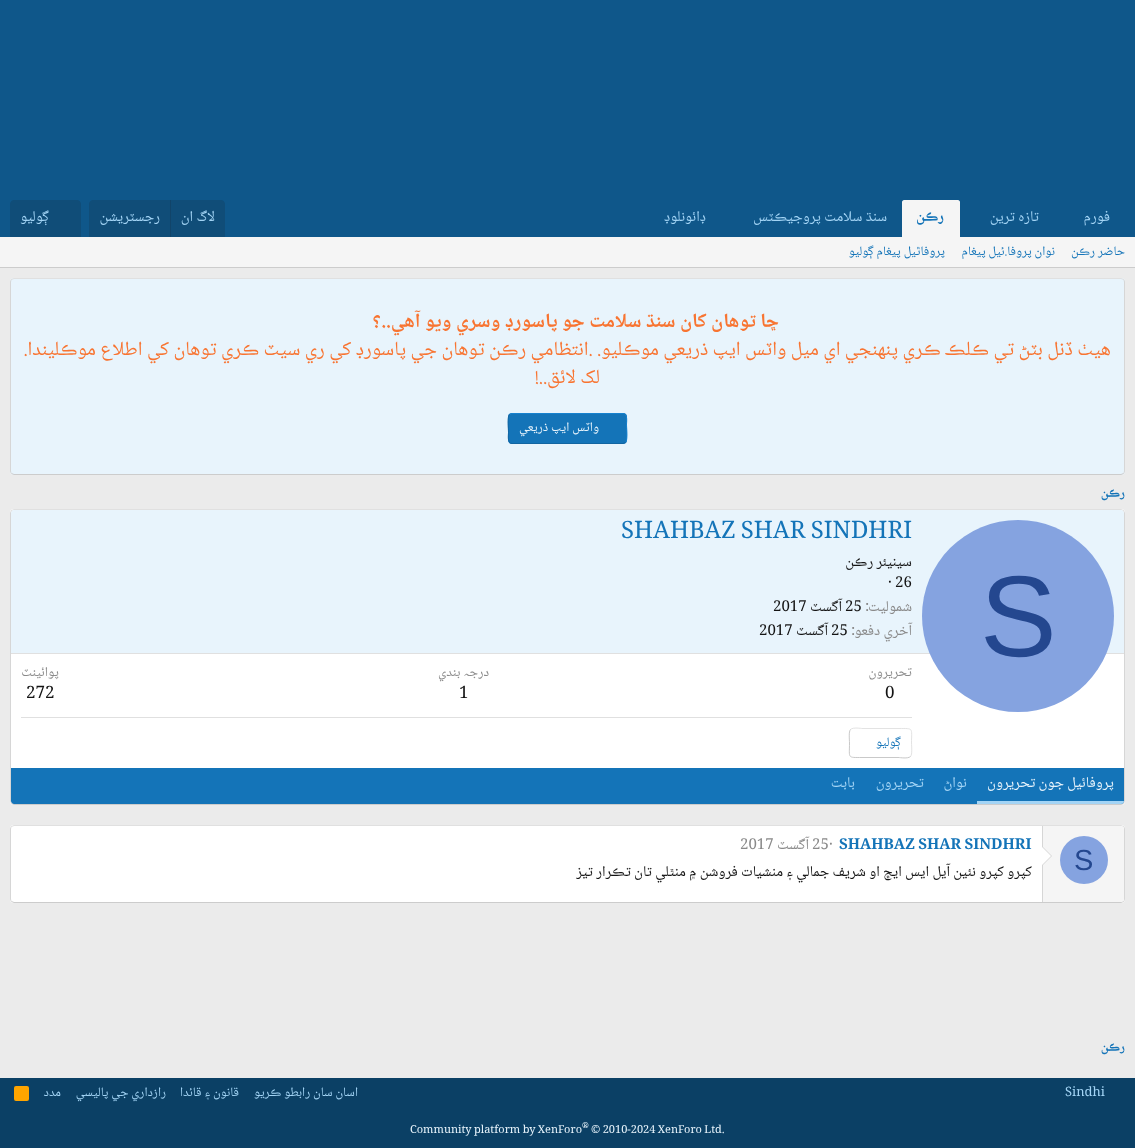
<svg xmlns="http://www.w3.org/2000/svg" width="1135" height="1148">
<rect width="100%" height="100%" fill="#ebebeb"/>
<rect width="1135" height="237" fill="#0f578a"/>
<text x="1110" y="221" style="font-family:Noto Naskh Arabic;font-size:15px;direction:rtl;fill:#a3d4f5">فورم</text>
<text x="1039" y="221" style="font-family:Noto Naskh Arabic;font-size:15px;direction:rtl;fill:#a3d4f5">تازہ ترين</text>
<path d="M904 200h54c1 0 2 1 2 2v35h-58v-35c0-1 1-2 2-2z" fill="#f5f5f5"/>
<text x="944" y="221" style="font-family:Noto Naskh Arabic;font-size:15px;font-weight:bold;direction:rtl;fill:#1474b8">رڪن</text>
<text x="887" y="221" style="font-family:Noto Naskh Arabic;font-size:15px;direction:rtl;fill:#a3d4f5">سنڌ سلامت پروجيڪٽس</text>
<text x="706" y="221" style="font-family:Noto Naskh Arabic;font-size:15px;direction:rtl;fill:#a3d4f5">ڊائونلوڊ</text>
<path d="M93 200h128c2 0 4 2 4 4v33h-136v-33c0-2 2-4 4-4z" fill="#104d78"/>
<text x="215" y="221" style="font-family:Noto Naskh Arabic;font-size:15px;direction:rtl;fill:#a3d4f5">لاگ ان</text>
<rect x="170" y="200" width="1" height="37" fill="#114469"/>
<text x="160" y="221" style="font-family:Noto Naskh Arabic;font-size:15px;direction:rtl;fill:#a3d4f5">رجسٽريشن</text>
<path d="M14 200h63c2 0 4 2 4 4v33h-71v-33c0-2 2-4 4-4z" fill="#104d78"/>
<text x="49" y="221" style="font-family:Noto Naskh Arabic;font-size:15px;direction:rtl;fill:#a3d4f5">ڳوليو</text>
<rect y="237" width="1135" height="30" fill="#f5f5f5"/>
<rect y="267" width="1135" height="1" fill="#ccc"/>
<text x="1125" y="255" style="font-family:Noto Naskh Arabic;font-size:13px;direction:rtl;fill:#1474b8">حاضر رڪن</text>
<text x="1055" y="255" style="font-family:Noto Naskh Arabic;font-size:13px;direction:rtl;fill:#1474b8">نوان پروفا.ئيل پيغام</text>
<text x="945" y="255" style="font-family:Noto Naskh Arabic;font-size:13px;direction:rtl;fill:#1474b8">پروفاٿيل پيغام ڳوليو</text>
<rect x="10" y="278" width="1115" height="197" rx="4" fill="#e8f4fc"/>
<path d="M11.5 279.5l2.5-1h1107l2.5 1" fill="none" stroke="#e0e0e0"/>
<path d="M1123.5 279.5c.5 .5 1 1.5 1 2.5v189c0 1-.5 2-1 2.5" fill="none" stroke="#d6d6d6"/>
<path d="M1123.5 473.5l-2.5 1h-1107l-2.5-1" fill="none" stroke="#ccc"/>
<path d="M11.5 473.5c-.5-.5-1-1.5-1-2.5v-189c0-1 .5-2 1-2.5" fill="none" stroke="#d6d6d6"/>
<text x="779" y="327" style="font-family:Noto Naskh Arabic;font-size:20px;font-weight:bold;direction:rtl;fill:#f87431">ڇا توھان کان سنڌ سلامت جو پاسورڊ وسري ويو آھي..؟</text>
<text x="1111" y="355" style="font-family:Noto Naskh Arabic;font-size:20px;direction:rtl;fill:#f87431">ھيٺ ڏنل بٽڻ تي ڪلڪ ڪري پنھنجي اي ميل واٽس ايپ ذريعي موڪليو. .انتظامي رڪن توھان جي پاسورڊ کي ري سيٽ ڪري توھان کي اطلاع موڪليندا.</text>
<text x="600" y="383" style="font-family:Noto Naskh Arabic;font-size:20px;direction:rtl;fill:#f87431">لک لائق..!</text>
<rect x="508" y="413" width="119" height="31" rx="4" fill="#1474b8"/>
<path d="M509.5 414.5l2.5-1h111c5 0 3.5 8.5 3.5 11c0 3.5 1.5 15.5-1 18" fill="none" stroke="#1782cf"/>
<path d="M625.5 442.5l-2.5 1h-111c-5 0-3.5-8.5-3.5-11c0-3.5-1.5-15.5 1-18" fill="none" stroke="#1265a1"/>
<text x="599" y="431" style="font-family:Noto Naskh Arabic;font-size:13px;direction:rtl;fill:#e8f4fc">واٽس ايپ ذريعي</text>
<text x="1125" y="497" style="font-family:Noto Naskh Arabic;font-size:13px;font-weight:bold;direction:rtl;fill:#1474b8">رڪن</text>
<rect x="10" y="509" width="1115" height="296" rx="4" fill="#fff"/>
<path d="M11.5 510.5l2.5-1h1107l2.5 1" fill="none" stroke="#e0e0e0"/>
<path d="M1123.5 510.5l1 2.5v288l-1 2.5" fill="none" stroke="#d6d6d6"/>
<path d="M1123.5 803.5l-2.5 1h-1107l-2.5-1" fill="none" stroke="#ccc"/>
<path d="M11.5 803.5l-1-2.5v-288l1-2.5" fill="none" stroke="#d6d6d6"/>
<path d="M14 510h1107c1.5 0 3 1.5 3 3v141h-1113v-141c0-1.5 1.5-3 3-3z" fill="#e8f4fc"/>
<rect x="11" y="653" width="1113" height="1" fill="#e0e0e0"/>
<circle cx="1018" cy="616" r="96" fill="#85a3e0"/>
<text x="980" y="656" style="font-family:Liberation Sans;font-size:115px;fill:#24478f">S</text>
<text x="621" y="538" style="font-family:Noto Naskh Arabic;font-size:24px;fill:#1474b8">SHAHBAZ SHAR SINDHRI</text>
<text x="912" y="566" style="font-family:Noto Naskh Arabic;font-size:15px;direction:rtl;fill:#141414">سينيئر رڪن</text>
<text x="888" y="587" style="font-family:Noto Naskh Arabic;font-size:15px;fill:#141414">· 26</text>
<text x="912" y="611" style="font-family:Noto Naskh Arabic;font-size:15px;direction:rtl;fill:#8a8a8a">شموليت</text>
<text x="865" y="611" style="font-family:Noto Naskh Arabic;font-size:15px;fill:#8a8a8a">:</text>
<text x="845" y="611" style="font-family:Noto Naskh Arabic;font-size:15px;fill:#141414">25</text>
<text x="842" y="611" style="font-family:Noto Naskh Arabic;font-size:15px;direction:rtl;fill:#141414">آگسٽ</text>
<text x="773" y="611" style="font-family:Noto Naskh Arabic;font-size:15px;fill:#141414">2017</text>
<text x="912" y="635" style="font-family:Noto Naskh Arabic;font-size:15px;direction:rtl;fill:#8a8a8a">آخري دفعو</text>
<text x="851" y="635" style="font-family:Noto Naskh Arabic;font-size:15px;fill:#8a8a8a">:</text>
<text x="831" y="635" style="font-family:Noto Naskh Arabic;font-size:15px;fill:#141414">25</text>
<text x="828" y="635" style="font-family:Noto Naskh Arabic;font-size:15px;direction:rtl;fill:#141414">آگسٽ</text>
<text x="759" y="635" style="font-family:Noto Naskh Arabic;font-size:15px;fill:#141414">2017</text>
<text x="912" y="676" style="font-family:Noto Naskh Arabic;font-size:13.5px;direction:rtl;fill:#8a8a8a">تحريرون</text>
<text x="885" y="698" style="font-family:Noto Naskh Arabic;font-size:17px;fill:#141414">0</text>
<text x="489" y="676" style="font-family:Noto Naskh Arabic;font-size:13.5px;direction:rtl;fill:#8a8a8a">درجہ بندي</text>
<text x="459" y="698" style="font-family:Noto Naskh Arabic;font-size:17px;fill:#141414">1</text>
<text x="59" y="676" style="font-family:Noto Naskh Arabic;font-size:13.5px;direction:rtl;fill:#8a8a8a">پوائينٽ</text>
<text x="26" y="698" style="font-family:Noto Naskh Arabic;font-size:17px;fill:#141414">272</text>
<rect x="21" y="717" width="891" height="1" fill="#e0e0e0"/>
<path d="M850.5 729.5c2.5-2.5 11-1 11.5-1h37c15 0 12.5-1 12.5 14.5c0 3 1 11.5-1 13.5" fill="none" stroke="#e3e3e3"/>
<path d="M910.5 756.5c-2.5 2.5-11 1-11.5 1h-37c-15 0-12.5 1-12.5-14.5c0-3-1-11.5 1-13.5" fill="none" stroke="#c9c9c9"/>
<text x="901" y="746" style="font-family:Noto Naskh Arabic;font-size:13px;direction:rtl;fill:#1474b8">ڳوليو</text>
<path d="M11 768h1113v33c0 1.5-1.5 3-3 3h-1107c-1.5 0-3-1.5-3-3z" fill="#1474b8"/>
<path d="M977 801h147c0 1.5-1.5 3-3 3h-144z" fill="#a3d4f5"/>
<text x="1114" y="787" style="font-family:Noto Naskh Arabic;font-size:15px;direction:rtl;fill:#e8f4fc">پروفائيل جون تحريرون</text>
<text x="967" y="787" style="font-family:Noto Naskh Arabic;font-size:15px;direction:rtl;fill:#a3d4f5">نواڻ</text>
<text x="924" y="787" style="font-family:Noto Naskh Arabic;font-size:15px;direction:rtl;fill:#a3d4f5">تحريرون</text>
<text x="855" y="787" style="font-family:Noto Naskh Arabic;font-size:15px;direction:rtl;fill:#a3d4f5">بابت</text>
<rect x="10" y="825" width="1115" height="78" rx="4" fill="#fff"/>
<path d="M11.5 826.5l2.5-1h1107l2.5 1" fill="none" stroke="#e0e0e0"/>
<path d="M1123.5 826.5c.5 .5 1 1.5 1 2.5v70c0 1-.5 2-1 2.5" fill="none" stroke="#d6d6d6"/>
<path d="M1123.5 901.5l-2.5 1h-1107l-2.5-1" fill="none" stroke="#ccc"/>
<path d="M11.5 901.5c-.5-.5-1-1.5-1-2.5v-70c0-1 .5-2 1-2.5" fill="none" stroke="#d6d6d6"/>
<path d="M1042 826h79c1.5 0 3 1.5 3 3v70c0 1.5-1.5 3-3 3h-79z" fill="#f5f5f5"/>
<rect x="1042" y="826" width="1" height="76" fill="#d6d6d6"/>
<circle cx="1084" cy="860" r="24" fill="#85a3e0"/>
<text x="1074" y="870" style="font-family:Liberation Sans;font-size:29px;fill:#24478f">S</text>
<path d="M1042 866v-20l10 10z" fill="#d6d6d6"/>
<path d="M1042 865v-18l9 9z" fill="#fff"/>
<text x="839" y="849" style="font-family:Noto Naskh Arabic;font-size:15px;font-weight:bold;fill:#1474b8">SHAHBAZ SHAR SINDHRI</text>
<text x="829" y="849" style="font-family:Noto Naskh Arabic;font-size:15px;fill:#8a8a8a">·</text>
<text x="812" y="849" style="font-family:Noto Naskh Arabic;font-size:15px;fill:#8a8a8a">25</text>
<text x="809" y="849" style="font-family:Noto Naskh Arabic;font-size:15px;direction:rtl;fill:#8a8a8a">آگسٽ</text>
<text x="740" y="849" style="font-family:Noto Naskh Arabic;font-size:15px;fill:#8a8a8a">2017</text>
<text x="1032" y="876" style="font-family:Noto Naskh Arabic;font-size:15px;direction:rtl;fill:#141414">کپرو کپرو نئين آيل ايس ايڇ او شريف جمالي ۽ منشيات فروشن ۾ منٿلي تان تڪرار تيز</text>
<text x="1125" y="1051" style="font-family:Noto Naskh Arabic;font-size:13px;font-weight:bold;direction:rtl;fill:#1474b8">رڪن</text>
<rect y="1078" width="1135" height="70" fill="#0b4065"/>
<text x="1065" y="1096" style="font-family:Noto Naskh Arabic;font-size:13px;fill:#a3d4f5">Sindhi</text>
<text x="358" y="1096" style="font-family:Noto Naskh Arabic;font-size:13px;direction:rtl;fill:#a3d4f5">اسان سان رابطو ڪريو</text>
<text x="239" y="1096" style="font-family:Noto Naskh Arabic;font-size:13px;direction:rtl;fill:#a3d4f5">قانون ۽ قائدا</text>
<text x="166" y="1096" style="font-family:Noto Naskh Arabic;font-size:13px;direction:rtl;fill:#a3d4f5">رازداري جي پاليسي</text>
<text x="61" y="1096" style="font-family:Noto Naskh Arabic;font-size:13px;direction:rtl;fill:#a3d4f5">مدد</text>
<rect x="14" y="1086" width="15" height="15" rx="2" fill="#ffa500"/>
<text x="591" y="1133" style="font-family:Noto Naskh Arabic;font-size:11px;fill:#e8f4fc">© 2010-2024 XenForo Ltd.</text>
<text x="582" y="1128" style="font-family:Noto Naskh Arabic;font-size:8px;fill:#e8f4fc">®</text>
<text x="410" y="1133" style="font-family:Noto Naskh Arabic;font-size:11px;fill:#e8f4fc">Community platform by XenForo</text>
</svg>
